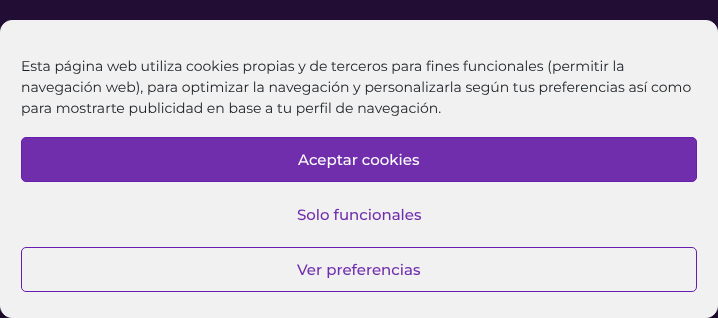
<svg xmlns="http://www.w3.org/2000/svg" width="718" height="318">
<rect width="100%" height="100%" fill="#220e34"/>
<rect y="26" width="718" height="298" rx="12" fill="#0000003b" filter="blur(3px)"/>
<rect x="0.5" y="20.5" width="717" height="297" rx="11.5" fill="#f1f1f1" stroke="#f1f1f1"/>
<text x="21" y="71" style="font-family:Montserrat;font-size:14px;fill:#191e23">Esta página web utiliza cookies propias y de terceros para fines funcionales (permitir la</text>
<text x="21" y="92" style="font-family:Montserrat;font-size:14px;fill:#191e23">navegación web), para optimizar la navegación y personalizarla según tus preferencias así como</text>
<text x="21" y="113" style="font-family:Montserrat;font-size:14px;fill:#191e23">para mostrarte publicidad en base a tu perfil de navegación.</text>
<rect x="21.5" y="137.5" width="675" height="44" rx="4.5" fill="#702ead" stroke="#671dad"/>
<text x="298" y="165" style="font-family:Montserrat;font-size:15px;font-weight:500;fill:#fff">Aceptar cookies</text>
<text x="297" y="220" style="font-family:Montserrat;font-size:15px;font-weight:500;fill:#702ead">Solo funcionales</text>
<rect x="21.5" y="247.5" width="675" height="44" rx="4.5" fill="none" stroke="#671dad"/>
<text x="297" y="275" style="font-family:Montserrat;font-size:15px;font-weight:500;fill:#702ead">Ver preferencias</text>
</svg>
